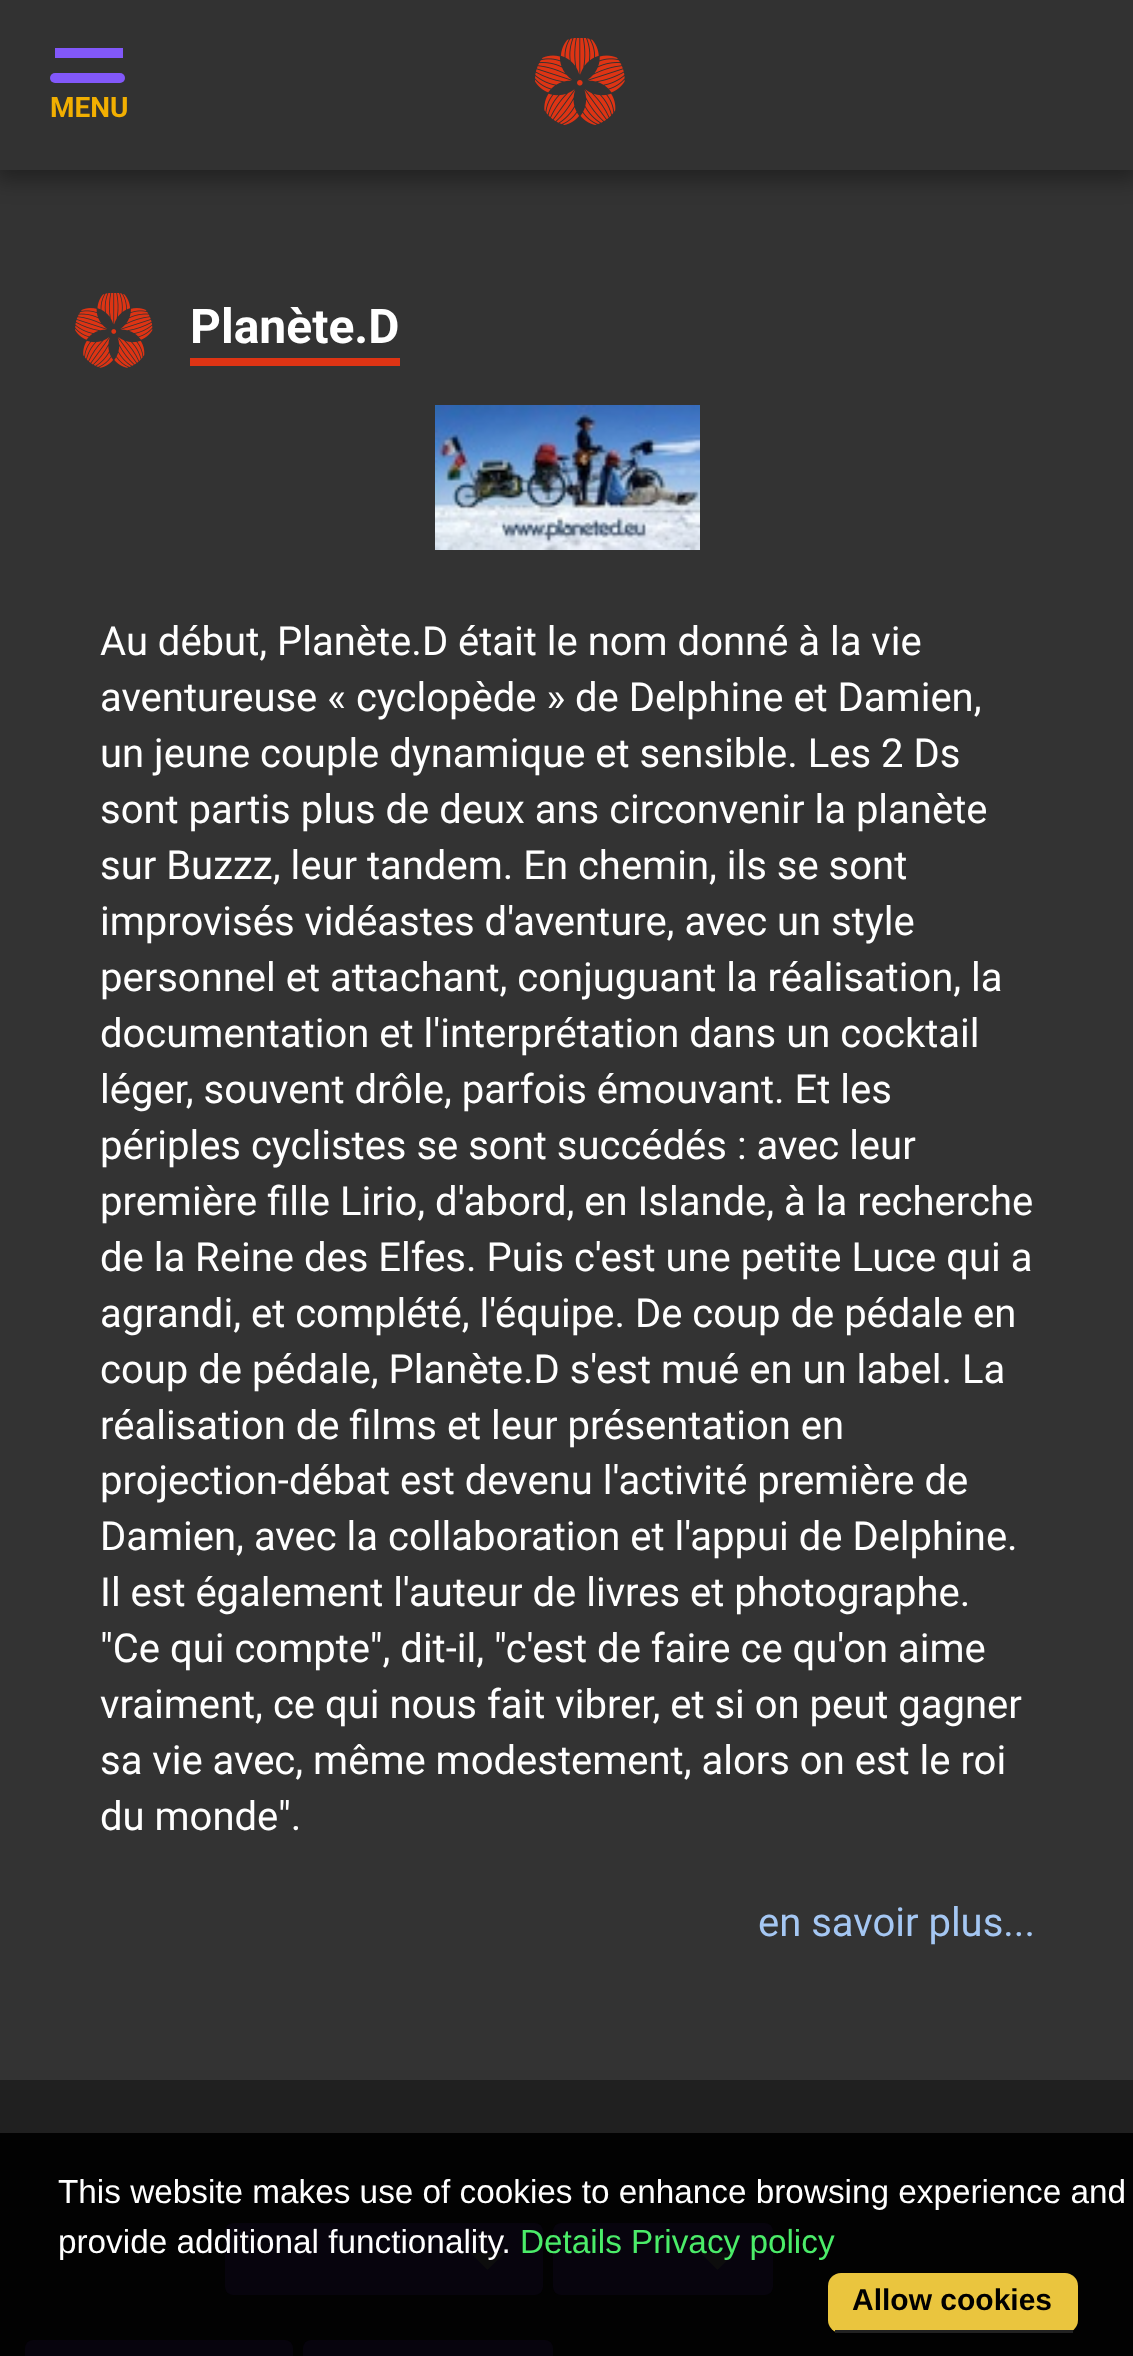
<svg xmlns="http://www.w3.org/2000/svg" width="1133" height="2356">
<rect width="100%" height="100%" fill="#202020"/>
<rect y="2133" width="1133" height="223" fill="#020202"/>
<rect y="170" width="1133" height="1910" fill="#333"/>
<rect x="-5" width="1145" height="180" fill="#00000059" filter="blur(11px)"/>
<rect width="1133" height="170" fill="#323232"/>
<rect x="55" y="48" width="68" height="10" fill="#8258fa"/>
<rect x="50" y="73" width="75" height="10" rx="5" fill="#8258fa"/>
<text x="50" y="117" style="font-family:Roboto;font-size:28px;font-weight:bold;fill:#f2af01">MENU</text>
<image x="535" y="38" width="90" height="87" href="media/1.png"/>
<image x="75" y="293" width="78" height="75" href="media/2.png"/>
<text x="190" y="343" style="font-family:Roboto;font-size:48px;font-weight:bold;fill:#fff">Planète.D</text>
<rect x="190" y="358" width="210" height="8" fill="#de3414"/>
<image x="435" y="405" width="265" height="145" href="media/3.png"/>
<text x="100" y="655" style="font-family:Roboto;font-size:40px;fill:#fff">Au début, Planète.D était le nom donné à la vie</text>
<text x="100" y="711" style="font-family:Roboto;font-size:40px;fill:#fff">aventureuse « cyclopède » de Delphine et Damien,</text>
<text x="100" y="767" style="font-family:Roboto;font-size:40px;fill:#fff">un jeune couple dynamique et sensible. Les 2 Ds</text>
<text x="100" y="823" style="font-family:Roboto;font-size:40px;fill:#fff">sont partis plus de deux ans circonvenir la planète</text>
<text x="100" y="879" style="font-family:Roboto;font-size:40px;fill:#fff">sur Buzzz, leur tandem. En chemin, ils se sont</text>
<text x="100" y="935" style="font-family:Roboto;font-size:40px;fill:#fff">improvisés vidéastes d'aventure, avec un style</text>
<text x="100" y="991" style="font-family:Roboto;font-size:40px;fill:#fff">personnel et attachant, conjuguant la réalisation, la</text>
<text x="100" y="1047" style="font-family:Roboto;font-size:40px;fill:#fff">documentation et l'interprétation dans un cocktail</text>
<text x="100" y="1103" style="font-family:Roboto;font-size:40px;fill:#fff">léger, souvent drôle, parfois émouvant. Et les</text>
<text x="100" y="1159" style="font-family:Roboto;font-size:40px;fill:#fff">périples cyclistes se sont succédés : avec leur</text>
<text x="100" y="1215" style="font-family:Roboto;font-size:40px;fill:#fff">première fille Lirio, d'abord, en Islande, à la recherche</text>
<text x="100" y="1271" style="font-family:Roboto;font-size:40px;fill:#fff">de la Reine des Elfes. Puis c'est une petite Luce qui a</text>
<text x="100" y="1327" style="font-family:Roboto;font-size:40px;fill:#fff">agrandi, et complété, l'équipe. De coup de pédale en</text>
<text x="100" y="1383" style="font-family:Roboto;font-size:40px;fill:#fff">coup de pédale, Planète.D s'est mué en un label. La</text>
<text x="100" y="1439" style="font-family:Roboto;font-size:40px;fill:#fff">réalisation de films et leur présentation en</text>
<text x="100" y="1494" style="font-family:Roboto;font-size:40px;fill:#fff">projection-débat est devenu l'activité première de</text>
<text x="100" y="1550" style="font-family:Roboto;font-size:40px;fill:#fff">Damien, avec la collaboration et l'appui de Delphine.</text>
<text x="100" y="1606" style="font-family:Roboto;font-size:40px;fill:#fff">Il est également l'auteur de livres et photographe.</text>
<text x="100" y="1662" style="font-family:Roboto;font-size:40px;fill:#fff">"Ce qui compte", dit-il, "c'est de faire ce qu'on aime</text>
<text x="100" y="1718" style="font-family:Roboto;font-size:40px;fill:#fff">vraiment, ce qui nous fait vibrer, et si on peut gagner</text>
<text x="100" y="1774" style="font-family:Roboto;font-size:40px;fill:#fff">sa vie avec, même modestement, alors on est le roi</text>
<text x="100" y="1830" style="font-family:Roboto;font-size:40px;fill:#fff">du monde".</text>
<text x="758" y="1936" style="font-family:Roboto;font-size:40px;fill:#a5c7f3">en savoir plus...</text>
<rect x="225" y="2223" width="318" height="72" rx="8" fill="#07040d"/>
<path d="M470 2252.5h35l-17.5 17.5z" fill="#0d0d0d"/>
<rect x="553" y="2223" width="220" height="72" rx="8" fill="#07040d"/>
<path d="M700 2252.5h35l-17.5 17.5z" fill="#0d0d0d"/>
<rect x="25" y="2340" width="268" height="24" rx="8" fill="#07040d"/>
<rect x="303" y="2340" width="250" height="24" rx="8" fill="#07040d"/>
<text x="58" y="2203" style="font-family:Liberation Sans;font-size:33.3px;fill:#fff">This website makes use of cookies to enhance browsing experience and</text>
<text x="58" y="2253" style="font-family:Liberation Sans;font-size:33.3px;fill:#fff">provide additional functionality.</text>
<text x="520" y="2253" style="font-family:Liberation Sans;font-size:33.3px;fill:#4bec69">Details Privacy policy</text>
<rect x="828" y="2273" width="250" height="60" rx="13" fill="#eac53e"/>
<rect x="835" y="2330" width="238" height="3" fill="#222"/>
<text x="852" y="2310" style="font-family:Liberation Sans;font-size:30px;font-weight:bold;fill:#000">Allow cookies</text>
</svg>
